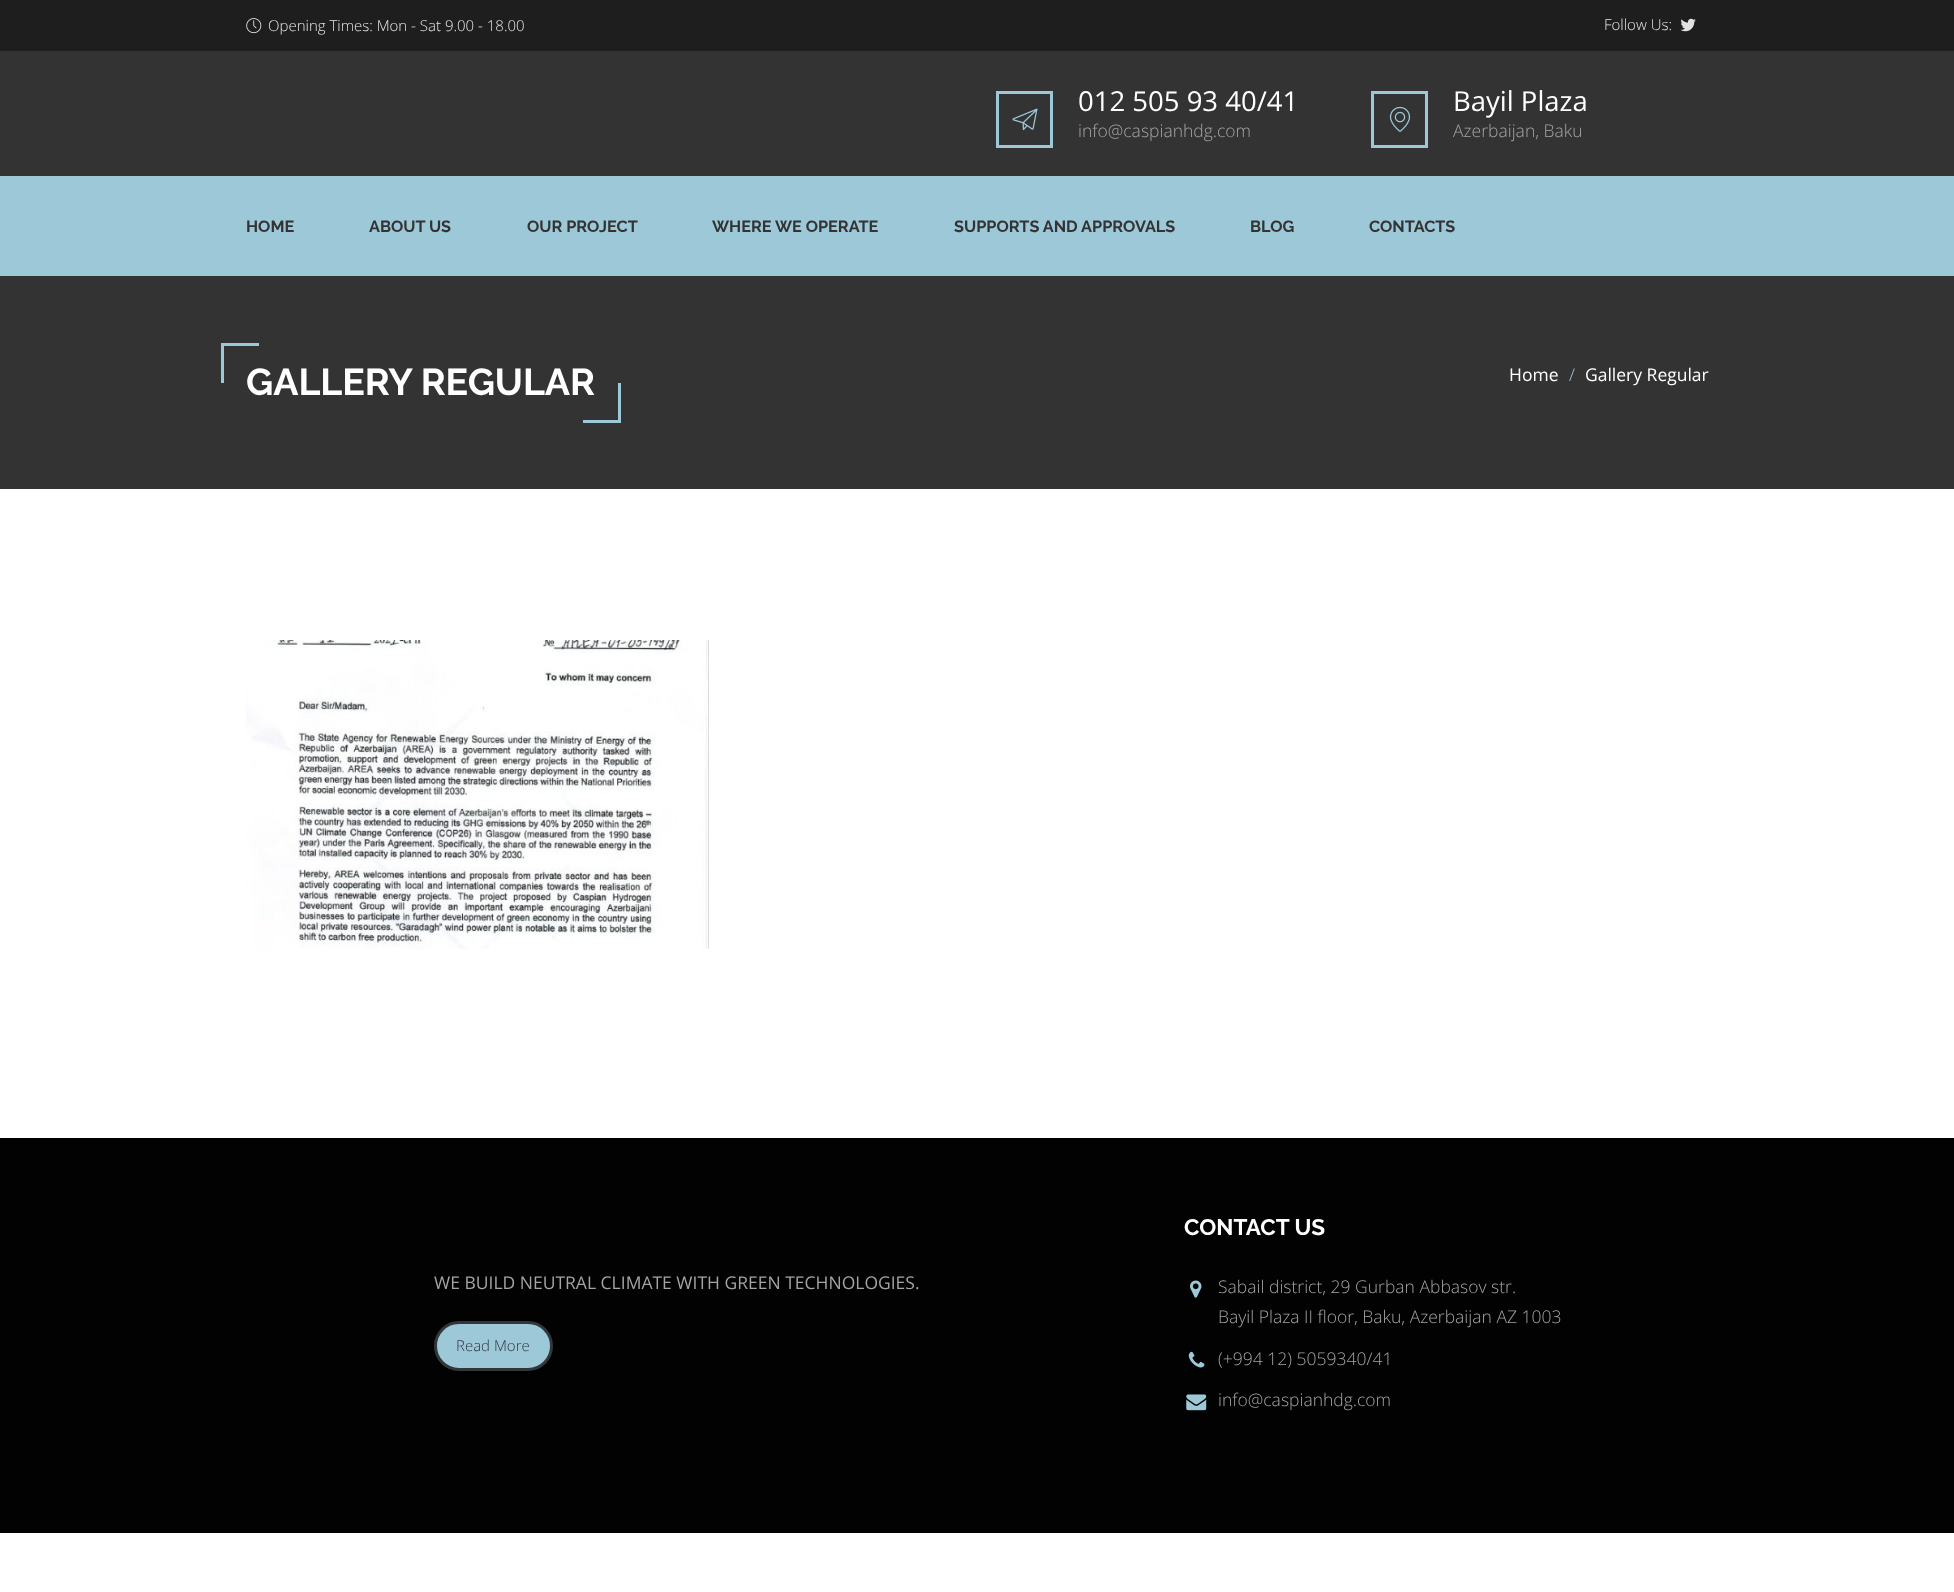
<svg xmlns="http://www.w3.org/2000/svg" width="1954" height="1592">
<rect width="100%" height="100%" fill="#fff"/>
<rect width="1954" height="51" fill="#1e1e1e"/>
<image x="246" y="18" width="16" height="16" href="media/1.png"/>
<text x="268" y="31" style="font-family:Open Sans;font-size:15px;font-weight:300;fill:#e6e4e4">Opening Times: Mon - Sat 9.00 - 18.00</text>
<text x="1604" y="30" style="font-family:Open Sans;font-size:15px;font-weight:300;fill:#e6e4e4">Follow Us:</text>
<image x="1680" y="18" width="16" height="14" href="media/2.png"/>
<rect y="51" width="1954" height="125" fill="#333"/>
<rect x="997.5" y="92.5" width="54" height="54" fill="none" stroke="#9cc8d8" stroke-width="3"/>
<image x="1012" y="108" width="26" height="23" href="media/3.png"/>
<text x="1078" y="111" style="font-family:Open Sans;font-size:27.5px;fill:#fff">012 505 93 40/41</text>
<text x="1078" y="137" style="font-family:Open Sans;font-size:17.5px;font-weight:300;fill:#a4a4a4">info@caspianhdg.com</text>
<rect x="1372.5" y="92.5" width="54" height="54" fill="none" stroke="#9cc8d8" stroke-width="3"/>
<image x="1389" y="106" width="22" height="26" href="media/4.png"/>
<text x="1453" y="111" style="font-family:Open Sans;font-size:27.5px;fill:#fff">Bayil Plaza</text>
<text x="1453" y="137" style="font-family:Open Sans;font-size:17.5px;font-weight:300;fill:#a4a4a4">Azerbaijan, Baku</text>
<rect y="176" width="1954" height="100" fill="#9cc8d8"/>
<text x="246" y="232" style="font-family:Raleway;font-size:16.25px;font-weight:bold;fill:#333">HOME</text>
<text x="369" y="232" style="font-family:Raleway;font-size:16.25px;font-weight:bold;fill:#333">ABOUT US</text>
<text x="527" y="232" style="font-family:Raleway;font-size:16.25px;font-weight:bold;fill:#333">OUR PROJECT</text>
<text x="712" y="232" style="font-family:Raleway;font-size:16.25px;font-weight:bold;fill:#333">WHERE WE OPERATE</text>
<text x="954" y="232" style="font-family:Raleway;font-size:16.25px;font-weight:bold;fill:#333">SUPPORTS AND APPROVALS</text>
<text x="1250" y="232" style="font-family:Raleway;font-size:16.25px;font-weight:bold;fill:#333">BLOG</text>
<text x="1369" y="232" style="font-family:Raleway;font-size:16.25px;font-weight:bold;fill:#333">CONTACTS</text>
<rect y="276" width="1954" height="213" fill="#333"/>
<rect x="221" y="343" width="38" height="3" fill="#9cc8d8"/>
<rect x="221" y="343" width="3" height="40" fill="#9cc8d8"/>
<text x="246" y="395" style="font-family:Raleway;font-size:37.5px;font-weight:bold;fill:#fff">GALLERY REGULAR</text>
<rect x="618" y="383" width="3" height="40" fill="#9cc8d8"/>
<rect x="583" y="420" width="37" height="3" fill="#9cc8d8"/>
<text x="1509" y="381" style="font-family:Open Sans;font-size:17.5px;fill:#fff">Home</text>
<text x="1569" y="381" style="font-family:Open Sans;font-size:17.5px;font-weight:300;fill:#9cc8d8">/</text>
<text x="1585" y="381" style="font-family:Open Sans;font-size:17.5px;fill:#fff">Gallery Regular</text>
<image x="246" y="640" width="463" height="309" href="media/5.png"/>
<rect y="1138" width="1954" height="395" fill="#020202"/>
<text x="434" y="1289" style="font-family:Open Sans;font-size:17.5px;fill:#a4a4a4">WE BUILD NEUTRAL CLIMATE WITH GREEN TECHNOLOGIES.</text>
<rect x="435.5" y="1322.5" width="116" height="47" rx="23.5" fill="#9cc8d8" stroke="#32373c" stroke-width="3"/>
<text x="456" y="1351" style="font-family:Open Sans;font-size:15px;font-weight:300;fill:#32373c">Read More</text>
<text x="1184" y="1235" style="font-family:Raleway;font-size:22.5px;font-weight:bold;fill:#fff">CONTACT US</text>
<image x="1190" y="1280" width="12" height="18" href="media/6.png"/>
<text x="1218" y="1293" style="font-family:Open Sans;font-size:17.5px;font-weight:300;fill:#a4a4a4">Sabail district, 29 Gurban Abbasov str.</text>
<text x="1218" y="1323" style="font-family:Open Sans;font-size:17.5px;font-weight:300;fill:#a4a4a4">Bayil Plaza II floor, Baku, Azerbaijan AZ 1003</text>
<image x="1188" y="1351" width="17" height="17" href="media/7.png"/>
<text x="1218" y="1365" style="font-family:Open Sans;font-size:17.5px;font-weight:300;fill:#a4a4a4">(+994 12) 5059340/41</text>
<image x="1186" y="1394" width="21" height="17" href="media/8.png"/>
<text x="1218" y="1406" style="font-family:Open Sans;font-size:17.5px;font-weight:300;fill:#a4a4a4">info@caspianhdg.com</text>
</svg>
